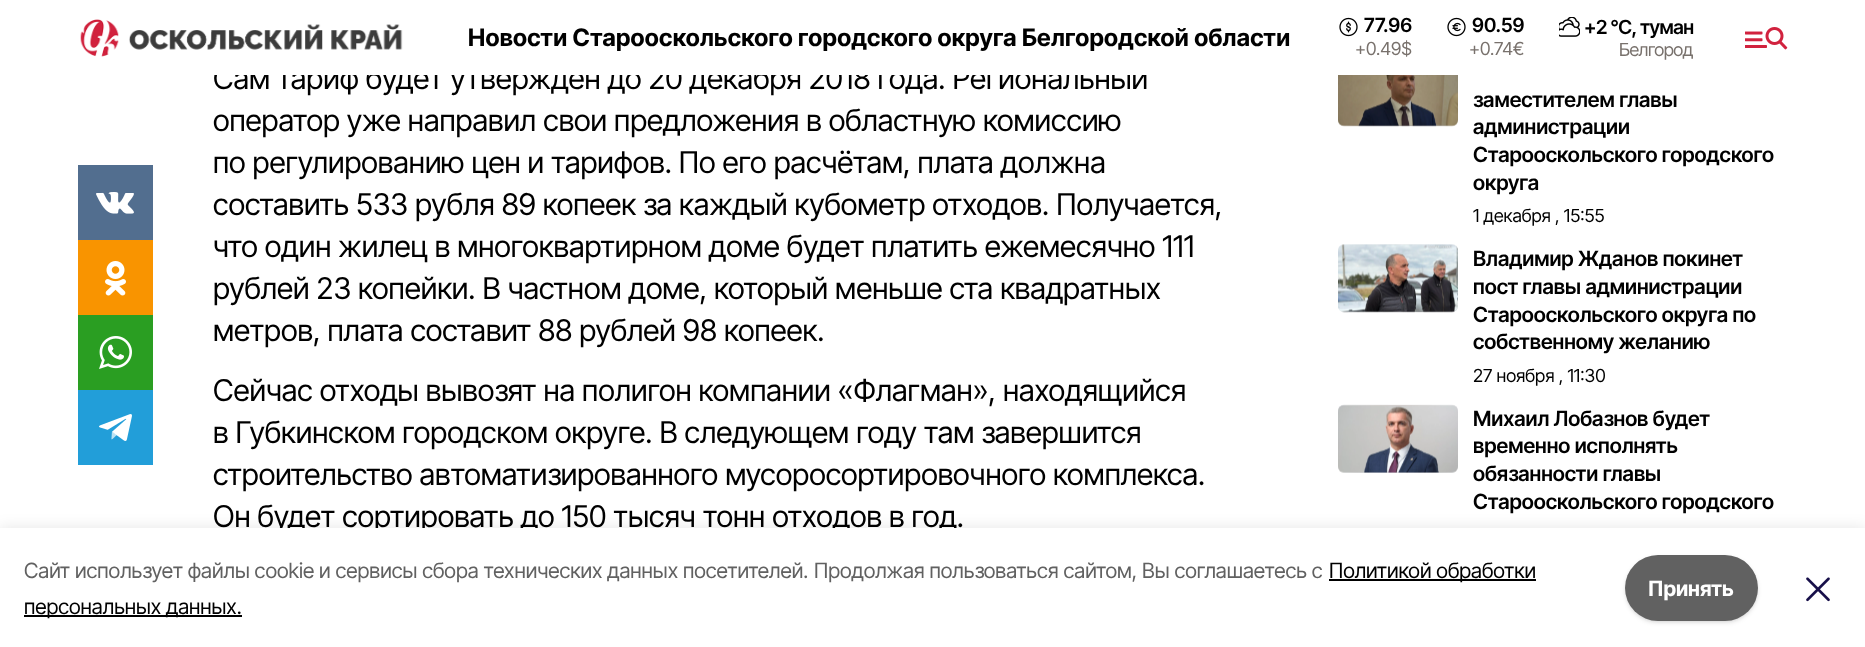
<svg xmlns="http://www.w3.org/2000/svg" width="1865" height="647">
<rect width="100%" height="100%" fill="#fff"/>
<text x="213" y="89" style="font-family:Inter Tight;font-size:30px;fill:#000">Сам тариф будет утверждён до 20 декабря 2018 года. Региональный</text>
<rect x="214" y="66" width="933" height="9" fill="#fff"/>
<image x="80" y="19" width="323" height="38" href="media/1.png"/>
<text x="468" y="46" style="font-family:Inter Tight;font-size:24px;font-weight:bold;letter-spacing:0.3px;fill:#000">Новости Старооскольского городского округа Белгородской области</text>
<image x="1339" y="17" width="19" height="20" href="media/2.png"/>
<text x="1364" y="32" style="font-family:Inter Tight;font-size:19.5px;font-weight:600;fill:#000">77.96</text>
<text x="1355" y="55" style="font-family:Inter Tight;font-size:18px;fill:#78716c">+0.49$</text>
<image x="1447" y="17" width="19" height="20" href="media/3.png"/>
<text x="1472" y="32" style="font-family:Inter Tight;font-size:19.5px;font-weight:600;fill:#000">90.59</text>
<text x="1469" y="55" style="font-family:Inter Tight;font-size:18px;fill:#78716c">+0.74€</text>
<image x="1559" y="17" width="21" height="20" href="media/4.png"/>
<text x="1584" y="34" style="font-family:Inter Tight;font-size:19.5px;font-weight:600;letter-spacing:-0.5px;fill:#000">+</text>
<text x="1596" y="34" style="font-family:Inter Tight;font-size:19.5px;font-weight:600;letter-spacing:-0.5px;fill:#000">2 °С,</text>
<text x="1640" y="34" style="font-family:Inter Tight;font-size:19.5px;font-weight:600;letter-spacing:-0.5px;fill:#000">туман</text>
<text x="1619" y="56" style="font-family:Inter Tight;font-size:18px;letter-spacing:-0.5px;fill:#78716c">Белгород</text>
<image x="1745" y="27" width="43" height="23" href="media/5.png"/>
<rect x="78" y="165" width="75" height="75" fill="#526e8f"/>
<image x="96" y="192" width="38" height="22" href="media/6.png"/>
<rect x="78" y="240" width="75" height="75" fill="#f99400"/>
<image x="105" y="261" width="21" height="35" href="media/7.png"/>
<rect x="78" y="315" width="75" height="75" fill="#2a9e22"/>
<image x="99" y="336" width="33" height="33" href="media/8.png"/>
<rect x="78" y="390" width="75" height="75" fill="#229ed9"/>
<image x="99" y="414" width="33" height="27" href="media/9.png"/>
<text x="213" y="131" style="font-family:Inter Tight;font-size:30px;fill:#000">оператор уже направил свои предложения в областную комиссию</text>
<text x="213" y="173" style="font-family:Inter Tight;font-size:30px;fill:#000">по регулированию цен и тарифов. По его расчётам, плата должна</text>
<text x="213" y="215" style="font-family:Inter Tight;font-size:30px;fill:#000">составить 533 рубля 89 копеек за каждый кубометр отходов. Получается,</text>
<text x="213" y="257" style="font-family:Inter Tight;font-size:30px;fill:#000">что один жилец в многоквартирном доме будет платить ежемесячно 111</text>
<text x="213" y="299" style="font-family:Inter Tight;font-size:30px;fill:#000">рублей 23 копейки. В частном доме, который меньше ста квадратных</text>
<text x="213" y="341" style="font-family:Inter Tight;font-size:30px;fill:#000">метров, плата составит 88 рублей 98 копеек.</text>
<text x="213" y="401" style="font-family:Inter Tight;font-size:30px;fill:#000">Сейчас отходы вывозят на полигон компании «Флагман», находящийся</text>
<text x="213" y="443" style="font-family:Inter Tight;font-size:30px;fill:#000">в Губкинском городском округе. В следующем году там завершится</text>
<text x="213" y="485" style="font-family:Inter Tight;font-size:30px;fill:#000">строительство автоматизированного мусоросортировочного комплекса.</text>
<text x="213" y="527" style="font-family:Inter Tight;font-size:30px;fill:#000">Он будет сортировать до 150 тысяч тонн отходов в год.</text>
<image x="1338" y="120" width="120" height="6" href="media/11.png"/>
<image x="1338" y="75" width="120" height="52" href="media/10.png"/>
<text x="1473" y="107" style="font-family:Inter Tight;font-size:21px;font-weight:600;fill:#000">заместителем главы</text>
<text x="1473" y="134" style="font-family:Inter Tight;font-size:21px;font-weight:600;fill:#000">администрации</text>
<text x="1473" y="162" style="font-family:Inter Tight;font-size:21px;font-weight:600;fill:#000">Старооскольского городского</text>
<text x="1473" y="190" style="font-family:Inter Tight;font-size:21px;font-weight:600;fill:#000">округа</text>
<text x="1473" y="222" style="font-family:Inter Tight;font-size:18px;fill:#000">1 декабря , 15:55</text>
<image x="1338" y="244" width="120" height="68" href="media/12.png"/>
<image x="1338" y="244" width="120" height="69" href="media/13.png"/>
<text x="1473" y="266" style="font-family:Inter Tight;font-size:21px;font-weight:600;fill:#000">Владимир Жданов покинет</text>
<text x="1473" y="294" style="font-family:Inter Tight;font-size:21px;font-weight:600;fill:#000">пост главы администрации</text>
<text x="1473" y="322" style="font-family:Inter Tight;font-size:21px;font-weight:600;fill:#000">Старооскольского округа по</text>
<text x="1473" y="349" style="font-family:Inter Tight;font-size:21px;font-weight:600;fill:#000">собственному желанию</text>
<text x="1473" y="382" style="font-family:Inter Tight;font-size:18px;fill:#000">27 ноября , 11:30</text>
<rect x="1338" y="405" width="120" height="68" rx="6" fill="#f7f7f7"/>
<image x="1338" y="405" width="120" height="68" href="media/15.png"/>
<image x="1338" y="404" width="120" height="69" href="media/14.png"/>
<text x="1473" y="426" style="font-family:Inter Tight;font-size:21px;font-weight:600;fill:#000">Михаил Лобазнов будет</text>
<text x="1473" y="453" style="font-family:Inter Tight;font-size:21px;font-weight:600;fill:#000">временно исполнять</text>
<text x="1473" y="481" style="font-family:Inter Tight;font-size:21px;font-weight:600;fill:#000">обязанности главы</text>
<text x="1473" y="509" style="font-family:Inter Tight;font-size:21px;font-weight:600;fill:#000">Старооскольского городского</text>
<rect y="528" width="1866" height="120" fill="#0000001a" filter="blur(7.5px)"/>
<rect y="528" width="1865" height="119" fill="#fff"/>
<text x="24" y="578" style="font-family:Inter Tight;font-size:21px;fill:#616161">Cайт использует файлы cookie и сервисы сбора технических данных посетителей.</text>
<text x="814" y="578" style="font-family:Inter Tight;font-size:21px;fill:#616161">Продолжая пользоваться сайтом, Вы соглашаетесь с</text>
<rect x="1329" y="579" width="207" height="2" fill="#000"/>
<text x="1329" y="578" style="font-family:Inter Tight;font-size:21px;fill:#000">Политикой обработки</text>
<rect x="24" y="615" width="218" height="2" fill="#000"/>
<text x="24" y="614" style="font-family:Inter Tight;font-size:21px;fill:#000">персональных данных.</text>
<rect x="1626" y="558" width="131" height="63" rx="31.5" fill="#0000001a" filter="blur(1.5px)"/>
<rect x="1625" y="557" width="133" height="66" rx="33" fill="#0000001a" filter="blur(2px)"/>
<rect x="1625" y="555" width="133" height="66" rx="33" fill="#616161"/>
<text x="1648" y="596" style="font-family:Inter Tight;font-size:21px;font-weight:bold;fill:#fff">Принять</text>
<image x="1806" y="577" width="24" height="25" href="media/16.png"/>
</svg>
